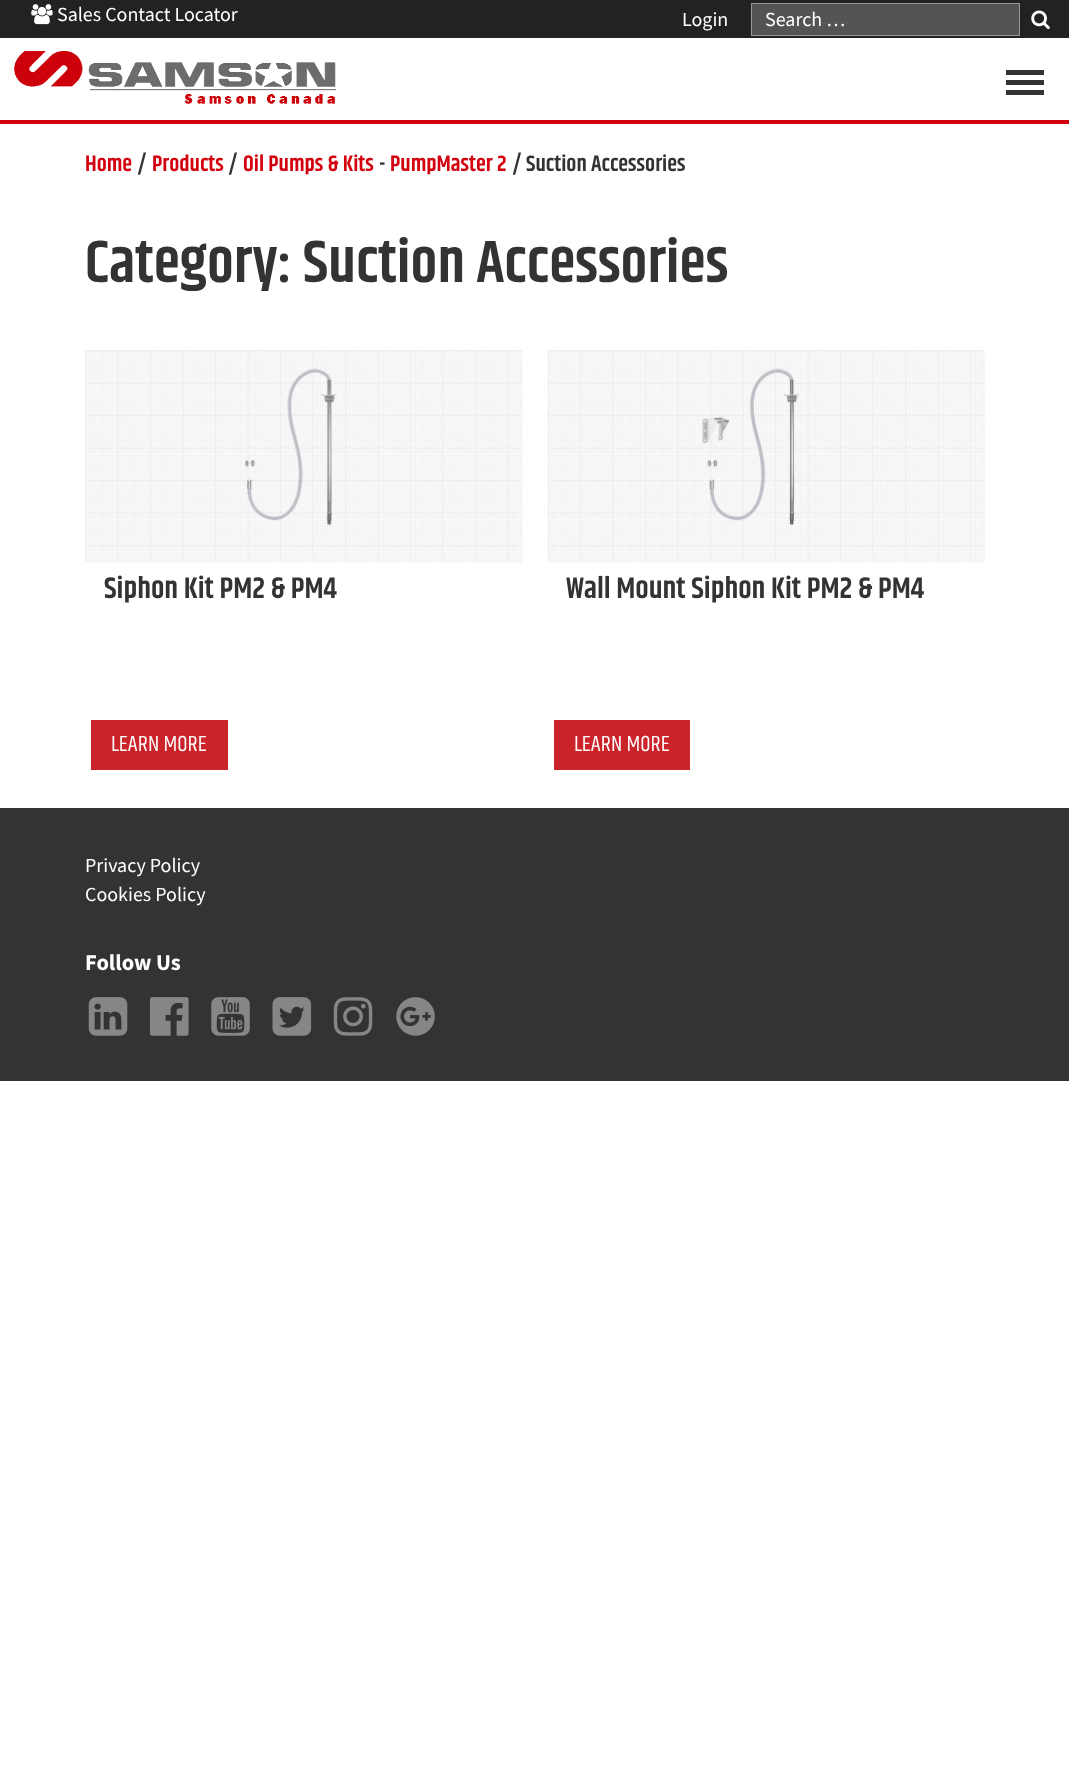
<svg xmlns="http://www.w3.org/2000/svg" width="1069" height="1777">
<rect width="100%" height="100%" fill="#fff"/>
<rect y="120" width="1069" height="4" fill="#d3000d"/>
<rect width="1069" height="38" fill="#222"/>
<image x="31" y="4" width="22" height="21" href="media/1.png"/>
<text x="57" y="21" style="font-family:Source Sans Pro;font-size:20px;fill:#fff">Sales Contact Locator</text>
<text x="682" y="26" style="font-family:Source Sans Pro;font-size:20px;fill:#fff">Login</text>
<rect x="751.5" y="3.5" width="268" height="32" fill="#555353" stroke="#979797"/>
<text x="765" y="26" style="font-family:Source Sans Pro;font-size:20px;fill:#fff">Search …</text>
<image x="1031" y="10" width="19" height="20" href="media/2.png"/>
<image x="14" y="51" width="322" height="53" href="media/3.png"/>
<rect x="1006" y="70" width="38" height="5" fill="#333"/>
<rect x="1006" y="80" width="38" height="5" fill="#333"/>
<rect x="1006" y="90" width="38" height="5" fill="#333"/>
<text x="85" y="171" style="font-family:Khand;font-size:22.5px;font-weight:600;fill:#d3000d">Home</text>
<text x="137" y="171" style="font-family:Khand;font-size:22.5px;font-weight:600;fill:#333">/</text>
<text x="152" y="171" style="font-family:Khand;font-size:22.5px;font-weight:600;fill:#d3000d">Products</text>
<text x="228" y="171" style="font-family:Khand;font-size:22.5px;font-weight:600;fill:#333">/</text>
<text x="243" y="171" style="font-family:Khand;font-size:22.5px;font-weight:600;fill:#d3000d">Oil Pumps &amp; Kits</text>
<text x="379" y="171" style="font-family:Khand;font-size:22.5px;font-weight:600;fill:#333">-</text>
<text x="390" y="171" style="font-family:Khand;font-size:22.5px;font-weight:600;fill:#d3000d">PumpMaster 2</text>
<text x="512" y="171" style="font-family:Khand;font-size:22.5px;font-weight:600;fill:#333">/</text>
<text x="526" y="171" style="font-family:Khand;font-size:22.5px;font-weight:600;fill:#333">Suction Accessories</text>
<text x="85" y="282" style="font-family:Khand;font-size:60px;font-weight:600;fill:#333">Category: Suction Accessories</text>
<image x="85" y="350" width="438" height="213" href="media/4.png"/>
<image x="245" y="368" width="92" height="158" href="media/5.png"/>
<text x="104" y="598" style="font-family:Khand;font-size:30px;font-weight:600;fill:#333">Siphon Kit PM2 &amp; PM4</text>
<rect x="91" y="720" width="137" height="50" fill="#cb232a"/>
<text x="111" y="751" style="font-family:Khand;font-size:22.5px;fill:#fff">LEARN MORE</text>
<image x="547" y="350" width="438" height="213" href="media/6.png"/>
<image x="702" y="368" width="98" height="158" href="media/7.png"/>
<text x="566" y="598" style="font-family:Khand;font-size:30px;font-weight:600;fill:#333">Wall Mount Siphon Kit PM2 &amp; PM4</text>
<rect x="554" y="720" width="136" height="50" fill="#cb232a"/>
<text x="574" y="751" style="font-family:Khand;font-size:22.5px;fill:#fff">LEARN MORE</text>
<rect y="808" width="1069" height="273" fill="#333"/>
<text x="85" y="872" style="font-family:Source Sans Pro;font-size:20px;fill:#fff">Privacy Policy</text>
<text x="85" y="901" style="font-family:Source Sans Pro;font-size:20px;fill:#fff">Cookies Policy</text>
<text x="85" y="970" style="font-family:Source Sans Pro;font-size:22.5px;font-weight:bold;fill:#fff">Follow Us</text>
<image x="88" y="997" width="40" height="39" href="media/8.png"/>
<image x="150" y="997" width="39" height="39" href="media/9.png"/>
<image x="211" y="997" width="39" height="39" href="media/10.png"/>
<image x="272" y="997" width="40" height="39" href="media/11.png"/>
<image x="333" y="997" width="40" height="39" href="media/12.png"/>
<image x="396" y="997" width="39" height="39" href="media/13.png"/>
</svg>
